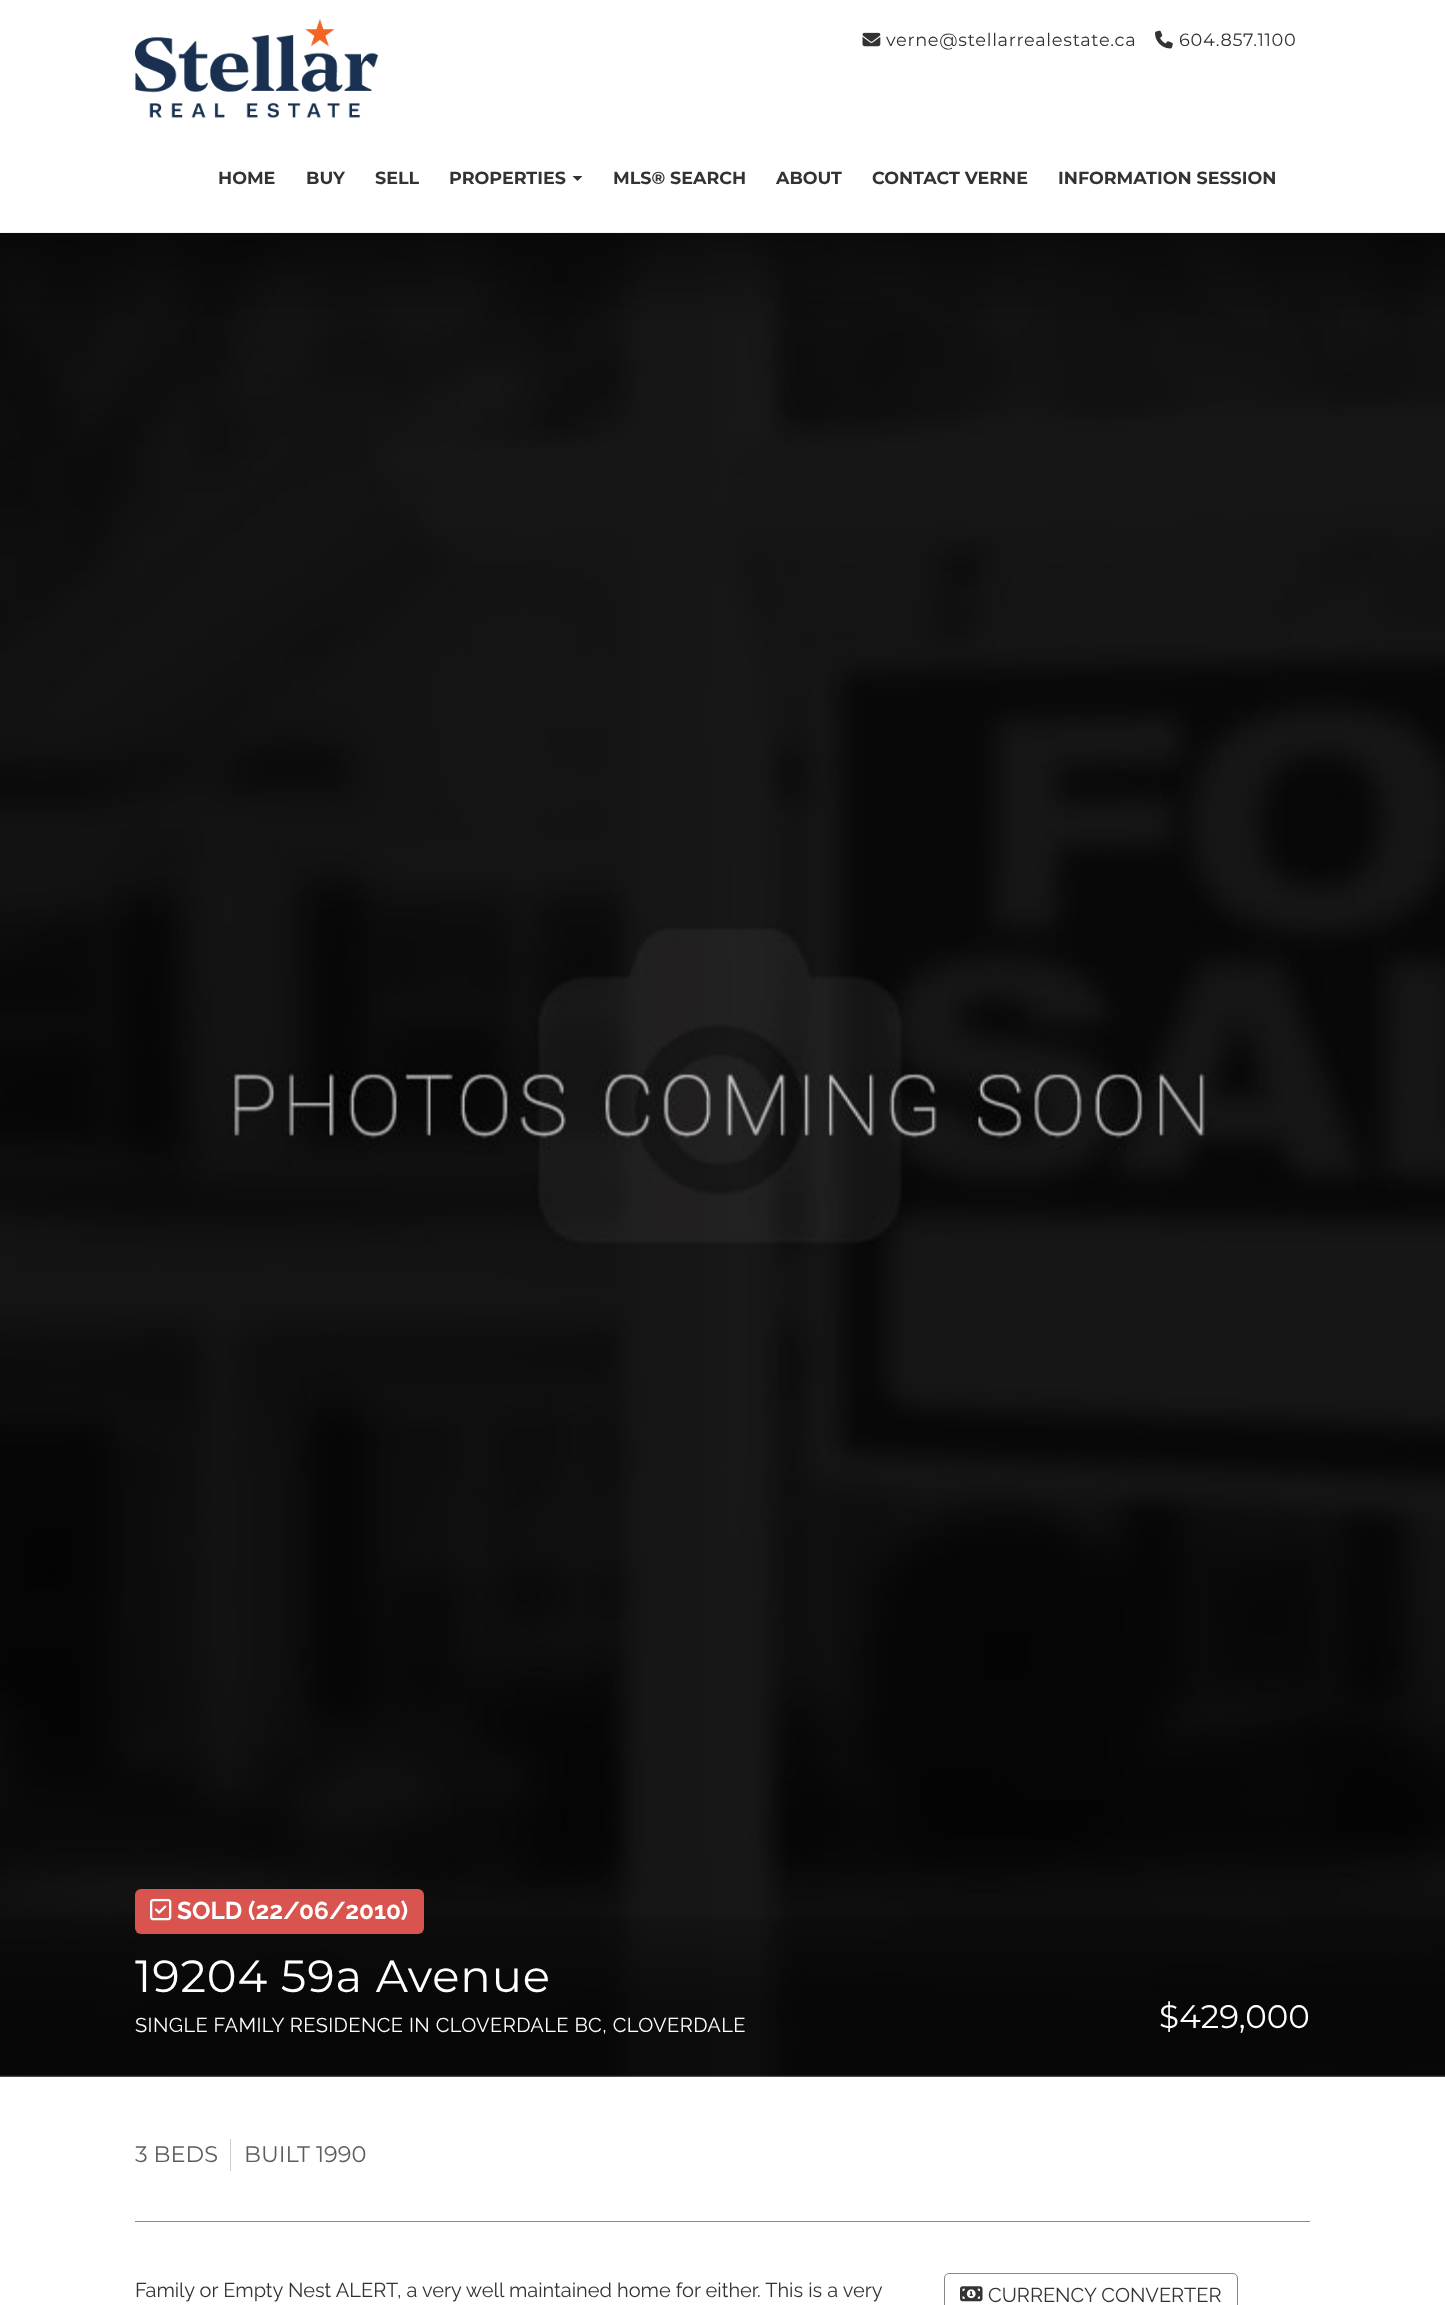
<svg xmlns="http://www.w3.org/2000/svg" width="1445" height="2305">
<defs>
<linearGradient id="g1" gradientUnits="userSpaceOnUse" x1="723" y1="1889" x2="723" y2="2076"><stop offset="0" stop-color="#000" stop-opacity="0"/><stop offset="0.6" stop-color="#000" stop-opacity="0.45"/></linearGradient>
</defs>
<rect width="100%" height="100%" fill="#fff"/>
<image x="135" y="18" width="243" height="100" href="media/1.png"/>
<image x="862" y="32" width="19" height="15" href="media/2.png"/>
<text x="886" y="46" style="font-family:Montserrat;font-size:17.75px;letter-spacing:0.7px;fill:#333">verne@stellarrealestate.ca</text>
<image x="1155" y="30" width="18" height="19" href="media/3.png"/>
<text x="1179" y="46" style="font-family:Montserrat;font-size:17.75px;letter-spacing:0.7px;fill:#333">604.857.1100</text>
<text x="218" y="184" style="font-family:Montserrat;font-size:17.5px;font-weight:bold;fill:#333">HOME</text>
<text x="306" y="184" style="font-family:Montserrat;font-size:17.5px;font-weight:bold;fill:#333">BUY</text>
<text x="375" y="184" style="font-family:Montserrat;font-size:17.5px;font-weight:bold;fill:#333">SELL</text>
<text x="449" y="184" style="font-family:Montserrat;font-size:17.5px;font-weight:bold;fill:#333">PROPERTIES</text>
<path d="M572.5 176h10l-5 5z" fill="#333"/>
<text x="613" y="184" style="font-family:Montserrat;font-size:17.5px;font-weight:bold;fill:#333">MLS® SEARCH</text>
<text x="776" y="184" style="font-family:Montserrat;font-size:17.5px;font-weight:bold;fill:#333">ABOUT</text>
<text x="872" y="184" style="font-family:Montserrat;font-size:17.5px;font-weight:bold;fill:#333">CONTACT VERNE</text>
<text x="1058" y="184" style="font-family:Montserrat;font-size:17.5px;font-weight:bold;fill:#333">INFORMATION SESSION</text>
<rect y="232" width="1445" height="1844" fill="#f5f5f5"/>
<image x="0" y="233" width="1445" height="1844" href="media/4.png"/>
<rect y="1917" width="1445" height="159" fill="url(#g1)"/>
<rect x="135" y="1889" width="289" height="45" rx="6" fill="#d9534f"/>
<image x="150" y="1898" width="22" height="23" href="media/5.png"/>
<text x="177" y="1919" style="font-family:Raleway;font-size:24.4px;font-weight:bold;fill:#fff">SOLD (22/06/2010)</text>
<text x="135" y="1992" style="font-family:Montserrat;font-size:45px;letter-spacing:0.9px;fill:#fff">19204 59a Avenue</text>
<text x="135" y="2032" style="font-family:Raleway;font-size:20px;letter-spacing:0.4px;fill:#fff">SINGLE FAMILY RESIDENCE IN CLOVERDALE BC, CLOVERDALE</text>
<text x="1159" y="2028" style="font-family:Montserrat;font-size:32.5px;fill:#fff">$429,000</text>
<rect x="135" y="2221" width="1175" height="1" fill="#888"/>
<rect x="230" y="2139" width="1" height="32" fill="#ccc"/>
<text x="135" y="2162" style="font-family:Montserrat;font-size:22.5px;fill:#5e5e5e">3 BEDS</text>
<text x="244" y="2162" style="font-family:Montserrat;font-size:22.5px;fill:#5e5e5e">BUILT 1990</text>
<text x="135" y="2297" style="font-family:Raleway;font-size:20px;fill:#333">Family or Empty Nest ALERT, a very well maintained home for either. This is a very</text>
<rect x="944.5" y="2273.5" width="293" height="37" rx="4.5" fill="none" stroke="#888"/>
<image x="960" y="2286" width="23" height="16" href="media/6.png"/>
<text x="988" y="2302" style="font-family:Raleway;font-size:20px;fill:#333">CURRENCY CONVERTER</text>
</svg>
